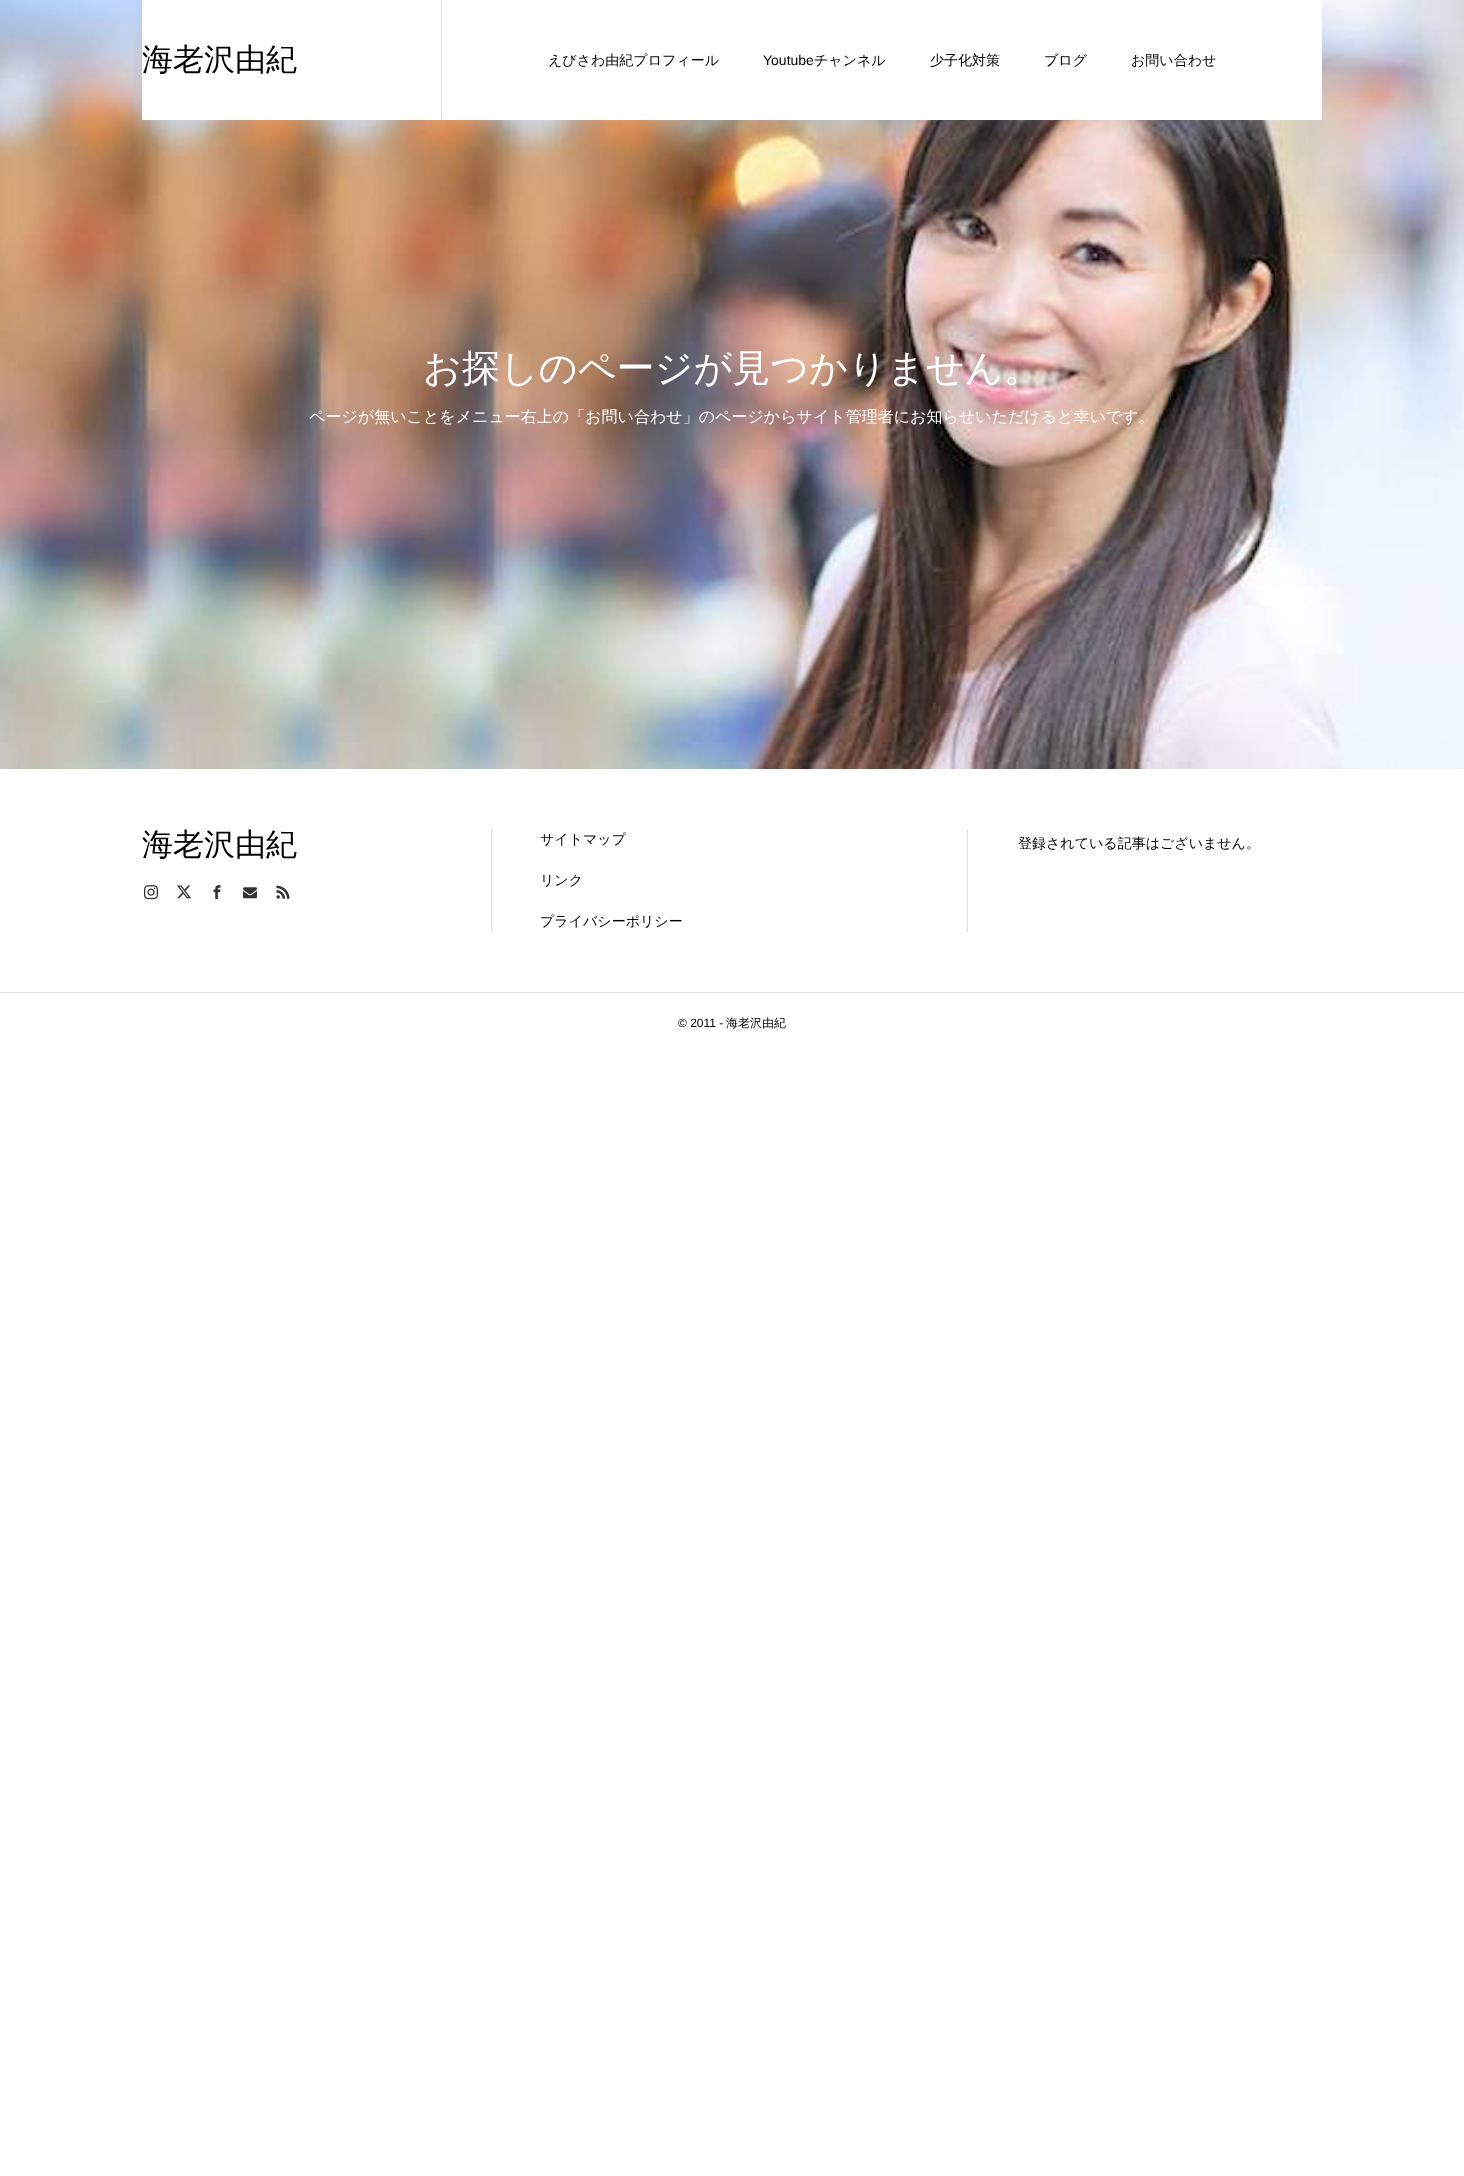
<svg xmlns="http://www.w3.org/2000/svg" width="1464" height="2176">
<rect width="100%" height="100%" fill="#fff"/>
<image x="0" y="0" width="1464" height="769" href="media/1.png"/>
<rect x="142" width="1180" height="120" fill="#fff"/>
<rect x="441" width="1" height="120" fill="#ddd"/>
<text x="142" y="70" style="font-family:WenQuanYi Zen Hei;font-size:31px;font-weight:500;fill:#000">海老沢由紀</text>
<text x="548" y="65" style="font-family:WenQuanYi Zen Hei;font-size:14px;font-weight:500;fill:#000">えびさわ由紀プロフィール</text>
<text x="763" y="65" style="font-family:Liberation Sans;font-size:14px;fill:#000">Youtube</text>
<text x="814" y="65" style="font-family:WenQuanYi Zen Hei;font-size:14px;font-weight:500;fill:#000">チャンネル</text>
<text x="930" y="65" style="font-family:WenQuanYi Zen Hei;font-size:14px;font-weight:500;fill:#000">少子化対策</text>
<text x="1044" y="65" style="font-family:WenQuanYi Zen Hei;font-size:14px;font-weight:500;fill:#000">ブログ</text>
<text x="1131" y="65" style="font-family:WenQuanYi Zen Hei;font-size:14px;font-weight:500;fill:#000">お問い合わせ</text>
<text x="423" y="381" style="font-family:WenQuanYi Zen Hei;font-size:38px;font-weight:500;fill:#fff">お探しのページが見つかりません。</text>
<text x="309" y="422" style="font-family:WenQuanYi Zen Hei;font-size:16px;font-weight:500;fill:#fff">ページが無いことをメニュー右上の「お問い合わせ」のページからサイト管理者にお知らせいただけると幸いです。</text>
<rect x="491" y="829" width="1" height="103" fill="#ddd"/>
<text x="142" y="855" style="font-family:WenQuanYi Zen Hei;font-size:31px;font-weight:500;fill:#000">海老沢由紀</text>
<image x="144" y="885" width="14" height="15" href="media/2.png"/>
<image x="177" y="885" width="14" height="14" href="media/3.png"/>
<image x="213" y="885" width="8" height="15" href="media/4.png"/>
<image x="243" y="887" width="14" height="12" href="media/5.png"/>
<image x="276" y="885" width="14" height="14" href="media/6.png"/>
<rect x="967" y="829" width="1" height="103" fill="#ddd"/>
<text x="540" y="844" style="font-family:WenQuanYi Zen Hei;font-size:14px;font-weight:500;fill:#000">サイトマップ</text>
<text x="540" y="885" style="font-family:WenQuanYi Zen Hei;font-size:14px;font-weight:500;fill:#000">リンク</text>
<text x="540" y="926" style="font-family:WenQuanYi Zen Hei;font-size:14px;font-weight:500;fill:#000">プライバシーポリシー</text>
<text x="1018" y="848" style="font-family:WenQuanYi Zen Hei;font-size:14px;font-weight:500;fill:#000">登録されている記事はございません。</text>
<rect y="992" width="1464" height="1" fill="#ddd"/>
<text x="678" y="1027" style="font-family:Liberation Sans;font-size:12px;fill:#000">© 2011 -</text>
<text x="726" y="1027" style="font-family:WenQuanYi Zen Hei;font-size:12px;font-weight:500;fill:#000">海老沢由紀</text>
</svg>
